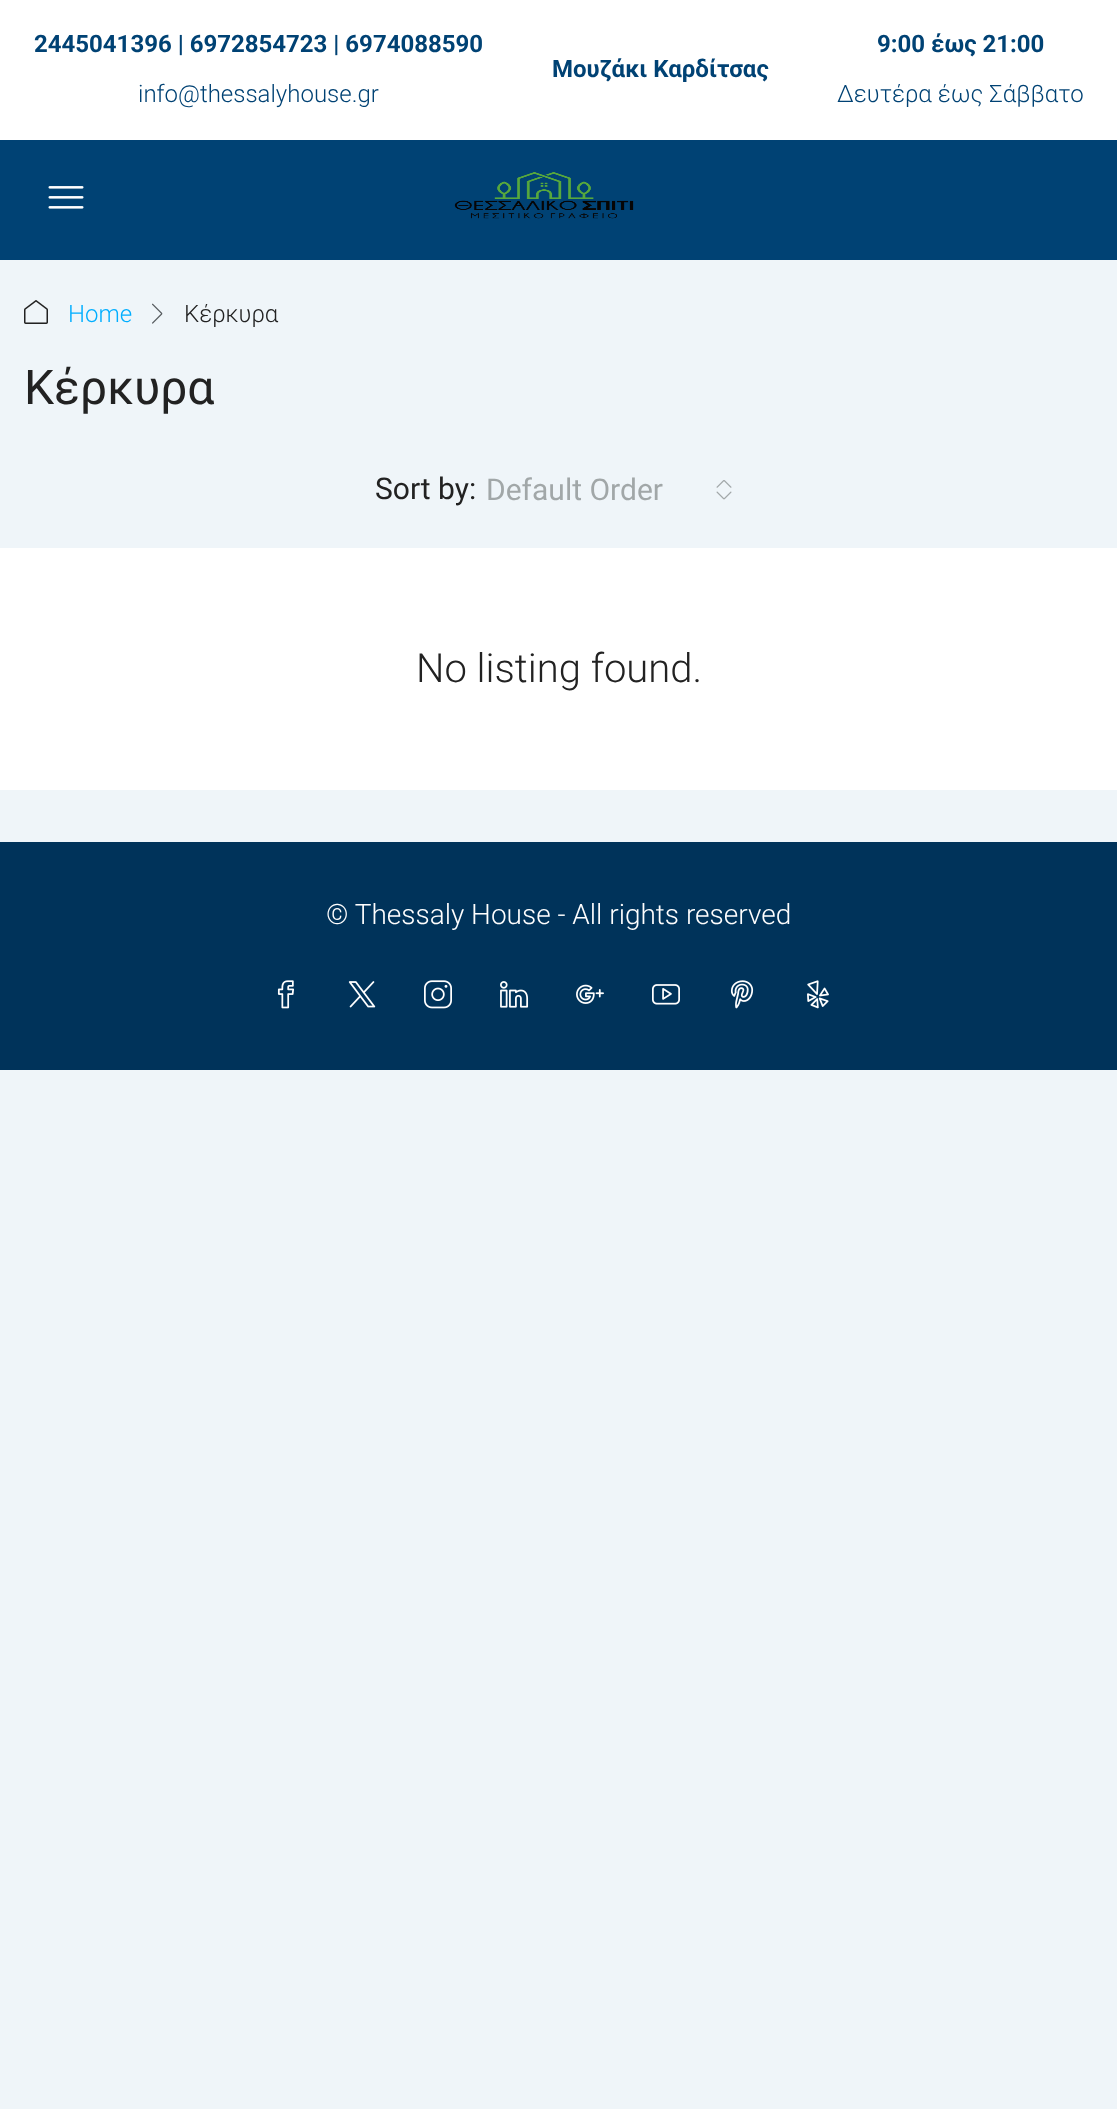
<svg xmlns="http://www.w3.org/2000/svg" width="1117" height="2109">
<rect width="100%" height="100%" fill="#eff5f9"/>
<rect width="1117" height="140" fill="#fff"/>
<text x="34" y="52" style="font-family:Roboto;font-size:24px;font-weight:bold;fill:#004274">2445041396 | 6972854723 | 6974088590</text>
<text x="138" y="102" style="font-family:Roboto;font-size:24px;font-weight:300;fill:#004274">info@thessalyhouse.gr</text>
<text x="552" y="77" style="font-family:Roboto;font-size:24px;font-weight:bold;fill:#004274">Μουζάκι Καρδίτσας</text>
<text x="877" y="52" style="font-family:Roboto;font-size:24px;font-weight:bold;fill:#004274">9:00 έως 21:00</text>
<text x="837" y="102" style="font-family:Roboto;font-size:24px;font-weight:300;fill:#004274">Δευτέρα έως Σάββατο</text>
<rect y="140" width="1117" height="120" fill="#004274"/>
<image x="48" y="186" width="36" height="23" href="media/1.png"/>
<image x="454" y="172" width="180" height="47" href="media/2.png"/>
<image x="24" y="300" width="24" height="24" href="media/3.png"/>
<text x="68" y="322" style="font-family:Roboto;font-size:24px;font-weight:300;fill:#00aeff">Home</text>
<image x="152" y="303" width="11" height="21" href="media/4.png"/>
<text x="184" y="322" style="font-family:Roboto;font-size:24px;font-weight:300;fill:#222">Κέρκυρα</text>
<text x="24" y="404" style="font-family:Roboto;font-size:48px;fill:#222">Κέρκυρα</text>
<text x="375" y="499" style="font-family:Roboto;font-size:30px;fill:#222">Sort by:</text>
<text x="486" y="500" style="font-family:Roboto;font-size:30px;fill:#a1a7a8">Default Order</text>
<image x="716" y="480" width="16" height="20" href="media/5.png"/>
<rect y="548" width="1117" height="242" fill="#fff"/>
<text x="416" y="682" style="font-family:Roboto;font-size:40px;font-weight:300;fill:#222">No listing found.</text>
<rect y="842" width="1117" height="228" fill="#00335a"/>
<text x="326" y="924" style="font-family:Roboto;font-size:28px;font-weight:300;fill:#fff">© Thessaly House - All rights reserved</text>
<image x="277" y="980" width="17" height="29" href="media/6.png"/>
<image x="348" y="981" width="28" height="27" href="media/7.png"/>
<image x="424" y="980" width="28" height="29" href="media/8.png"/>
<image x="500" y="981" width="29" height="27" href="media/9.png"/>
<image x="576" y="984" width="28" height="20" href="media/10.png"/>
<image x="652" y="984" width="28" height="21" href="media/11.png"/>
<image x="730" y="980" width="24" height="29" href="media/12.png"/>
<image x="807" y="980" width="22" height="29" href="media/13.png"/>
</svg>
